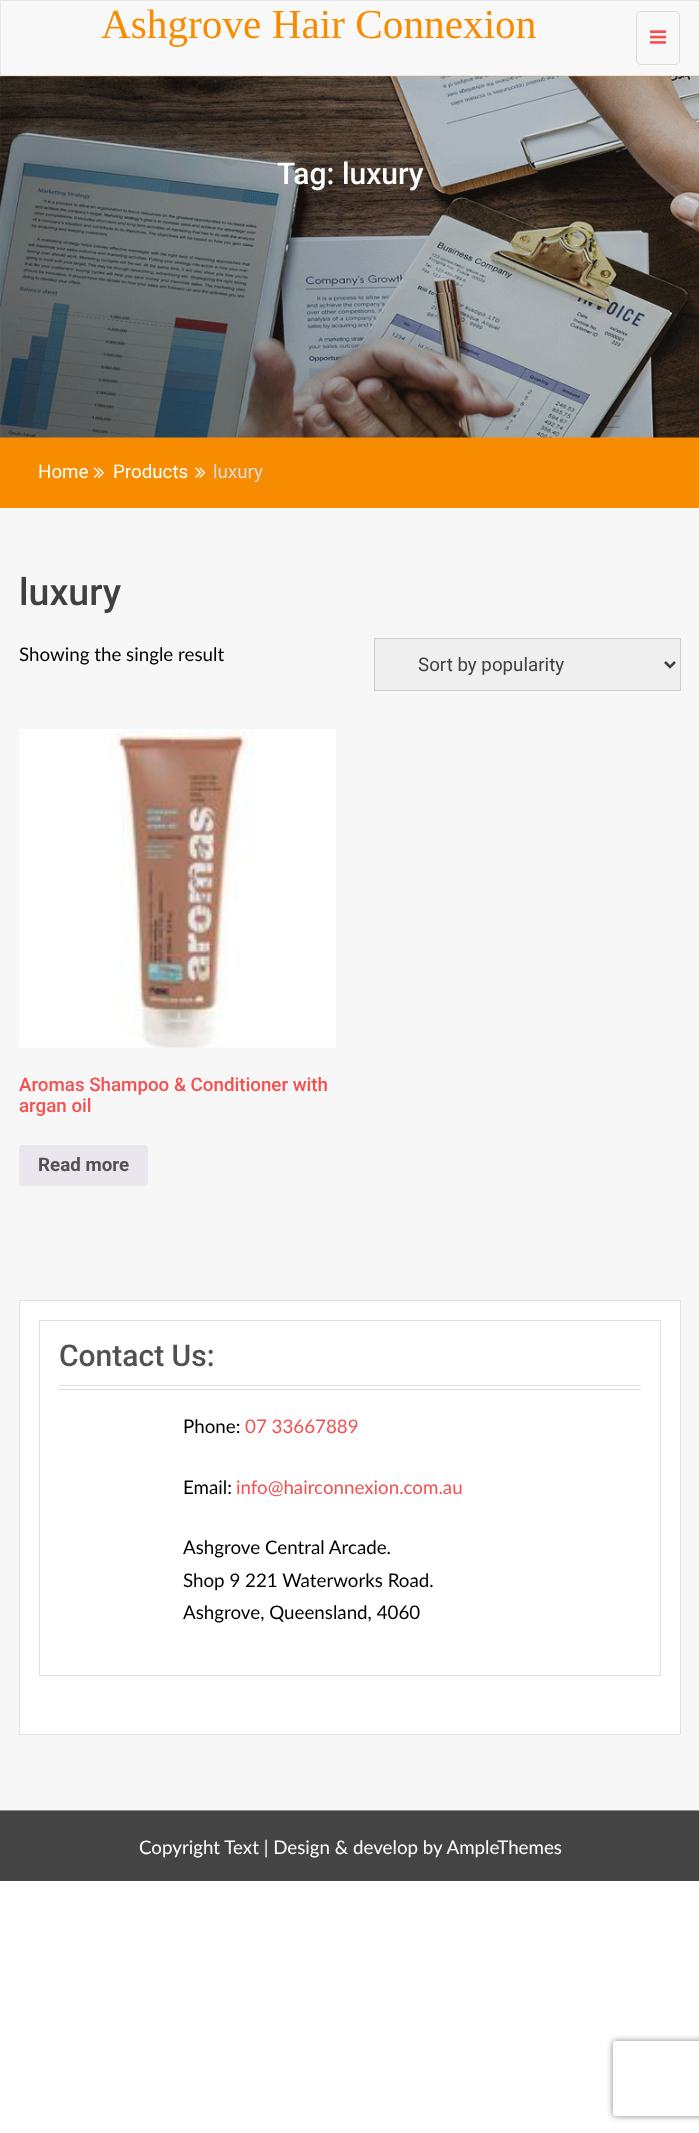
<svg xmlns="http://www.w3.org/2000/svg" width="699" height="2133">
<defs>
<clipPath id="clip1"><path d="M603 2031h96v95h-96zm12.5 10h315c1.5 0 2.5 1 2.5 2.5v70c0 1.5-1 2.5-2.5 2.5h-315c-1.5 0-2.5-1-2.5-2.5v-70c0-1.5 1-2.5 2.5-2.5z" clip-rule="evenodd"/></clipPath>
</defs>
<rect width="100%" height="100%" fill="#fff"/>
<rect x="0.5" y="0.5" width="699" height="75" fill="#f8f8f8" stroke="#e7e7e7"/>
<text x="101" y="38" style="font-family:Liberation Serif;font-size:41.25px;fill:#f88c00">Ashgrove Hair Connexion</text>
<rect x="636.5" y="11.5" width="43" height="53" rx="4.5" fill="none" stroke="#ddd"/>
<image x="650" y="30" width="17" height="14" href="media/1.png"/>
<rect y="76" width="699" height="432" fill="#f88c00"/>
<image x="0" y="76" width="699" height="362" href="media/2.png"/>
<text x="277" y="184" style="font-family:Roboto;font-size:30px;font-weight:500;fill:#fff">Tag: luxury</text>
<text x="38" y="478" style="font-family:Roboto;font-size:18.75px;fill:#fff">Home</text>
<image x="93" y="467" width="11" height="11" href="media/3.png"/>
<text x="113" y="478" style="font-family:Roboto;font-size:18.75px;fill:#fff">Products</text>
<image x="195" y="467" width="11" height="11" href="media/4.png"/>
<text x="213" y="478" style="font-family:Roboto;font-size:18.75px;fill:#dedada">luxury</text>
<rect y="508" width="699" height="1302" fill="#f7f7f7"/>
<text x="19" y="605" style="font-family:Roboto;font-size:37.5px;font-weight:500;fill:#404040">luxury</text>
<text x="19" y="661" style="font-family:Lato;font-size:18.75px;fill:#000">Showing the single result</text>
<rect x="374.5" y="638.5" width="306" height="52" fill="#efefef" stroke="#ccc"/>
<path d="M665 662l5 5l5-5" fill="none" stroke="#404040" stroke-width="2.5"/>
<text x="418" y="671" style="font-family:Roboto;font-size:18.75px;fill:#404040">Sort by popularity</text>
<image x="19" y="729" width="317" height="319" href="media/5.png"/>
<text x="19" y="1091" style="font-family:Roboto;font-size:18.75px;font-weight:500;fill:#f45050">Aromas Shampoo &amp; Conditioner with</text>
<text x="19" y="1112" style="font-family:Roboto;font-size:18.75px;font-weight:500;fill:#f45050">argan oil</text>
<rect x="19" y="1145" width="129" height="41" rx="4" fill="#e9e6ed"/>
<text x="38" y="1171" style="font-family:Roboto;font-size:18.75px;font-weight:bold;fill:#515151">Read more</text>
<rect x="19.5" y="1300.5" width="661" height="434" fill="#fff" stroke="#e1e1e1"/>
<rect x="39.5" y="1320.5" width="621" height="355" fill="none" stroke="#e1e1e1"/>
<rect x="59" y="1385" width="582" height="1" fill="#e1e1e1"/>
<rect x="59" y="1389" width="582" height="1" fill="#e1e1e1"/>
<text x="59" y="1366" style="font-family:Roboto;font-size:30px;font-weight:500;fill:#515151">Contact Us:</text>
<text x="183" y="1433" style="font-family:Lato;font-size:18.75px;fill:#000">Phone:</text>
<text x="245" y="1433" style="font-family:Lato;font-size:18.75px;fill:#f45050">07 33667889</text>
<text x="183" y="1494" style="font-family:Lato;font-size:18.75px;fill:#000">Email:</text>
<text x="236" y="1494" style="font-family:Lato;font-size:18.75px;fill:#f45050">info@hairconnexion.com.au</text>
<text x="183" y="1554" style="font-family:Lato;font-size:18.75px;fill:#000">Ashgrove Central Arcade.</text>
<text x="183" y="1587" style="font-family:Lato;font-size:18.75px;fill:#000">Shop 9 221 Waterworks Road.</text>
<text x="183" y="1619" style="font-family:Lato;font-size:18.75px;fill:#000">Ashgrove, Queensland, 4060</text>
<rect y="1811" width="699" height="70" fill="#444"/>
<rect y="1810" width="699" height="1" fill="#8e8e8e"/>
<text x="139" y="1854" style="font-family:Lato;font-size:18.75px;fill:#fff">Copyright Text | Design &amp; develop by AmpleThemes</text>
<g clip-path="url(#clip1)">
<rect x="613" y="2041" width="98" height="75" rx="2.5" fill="#808080" filter="blur(3px)"/>
</g>
</svg>
